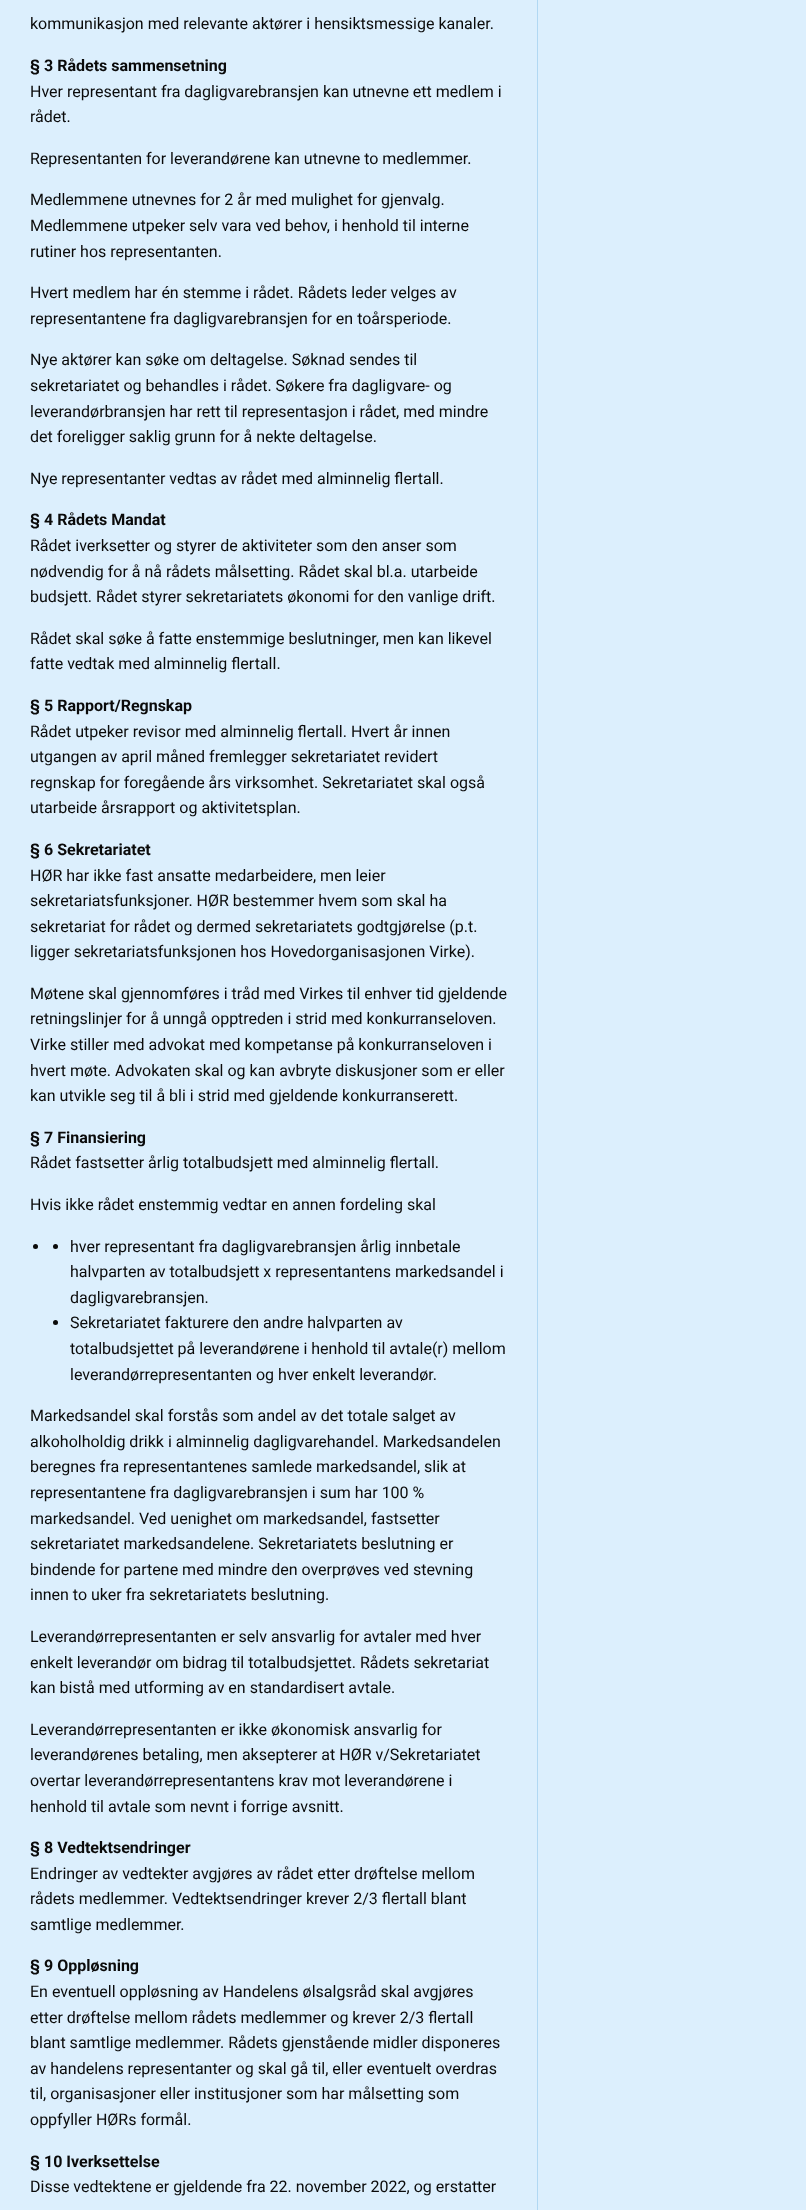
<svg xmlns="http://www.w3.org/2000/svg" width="806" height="2210">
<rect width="100%" height="100%" fill="#dceffd"/>
<text x="30" y="29" style="font-family:Roboto;font-size:16px;fill:#0a0a0a">kommunikasjon med relevante aktører i hensiktsmessige kanaler.</text>
<text x="30" y="71" style="font-family:Roboto;font-size:16px;font-weight:bold;fill:#0a0a0a">§ 3 Rådets sammensetning</text>
<text x="30" y="97" style="font-family:Roboto;font-size:16px;fill:#0a0a0a">Hver representant fra dagligvarebransjen kan utnevne ett medlem i</text>
<text x="30" y="122" style="font-family:Roboto;font-size:16px;fill:#0a0a0a">rådet.</text>
<text x="30" y="164" style="font-family:Roboto;font-size:16px;fill:#0a0a0a">Representanten for leverandørene kan utnevne to medlemmer.</text>
<text x="30" y="205" style="font-family:Roboto;font-size:16px;fill:#0a0a0a">Medlemmene utnevnes for 2 år med mulighet for gjenvalg.</text>
<text x="30" y="231" style="font-family:Roboto;font-size:16px;fill:#0a0a0a">Medlemmene utpeker selv vara ved behov, i henhold til interne</text>
<text x="30" y="257" style="font-family:Roboto;font-size:16px;fill:#0a0a0a">rutiner hos representanten.</text>
<text x="30" y="298" style="font-family:Roboto;font-size:16px;fill:#0a0a0a">Hvert medlem har én stemme i rådet. Rådets leder velges av</text>
<text x="30" y="324" style="font-family:Roboto;font-size:16px;fill:#0a0a0a">representantene fra dagligvarebransjen for en toårsperiode.</text>
<text x="30" y="365" style="font-family:Roboto;font-size:16px;fill:#0a0a0a">Nye aktører kan søke om deltagelse. Søknad sendes til</text>
<text x="30" y="391" style="font-family:Roboto;font-size:16px;fill:#0a0a0a">sekretariatet og behandles i rådet. Søkere fra dagligvare- og</text>
<text x="30" y="417" style="font-family:Roboto;font-size:16px;fill:#0a0a0a">leverandørbransjen har rett til representasjon i rådet, med mindre</text>
<text x="30" y="442" style="font-family:Roboto;font-size:16px;fill:#0a0a0a">det foreligger saklig grunn for å nekte deltagelse.</text>
<text x="30" y="484" style="font-family:Roboto;font-size:16px;fill:#0a0a0a">Nye representanter vedtas av rådet med alminnelig flertall.</text>
<text x="30" y="525" style="font-family:Roboto;font-size:16px;font-weight:bold;fill:#0a0a0a">§ 4 Rådets Mandat</text>
<text x="30" y="551" style="font-family:Roboto;font-size:16px;fill:#0a0a0a">Rådet iverksetter og styrer de aktiviteter som den anser som</text>
<text x="30" y="577" style="font-family:Roboto;font-size:16px;fill:#0a0a0a">nødvendig for å nå rådets målsetting. Rådet skal bl.a. utarbeide</text>
<text x="30" y="602" style="font-family:Roboto;font-size:16px;fill:#0a0a0a">budsjett. Rådet styrer sekretariatets økonomi for den vanlige drift.</text>
<text x="30" y="644" style="font-family:Roboto;font-size:16px;fill:#0a0a0a">Rådet skal søke å fatte enstemmige beslutninger, men kan likevel</text>
<text x="30" y="669" style="font-family:Roboto;font-size:16px;fill:#0a0a0a">fatte vedtak med alminnelig flertall.</text>
<text x="30" y="711" style="font-family:Roboto;font-size:16px;font-weight:bold;fill:#0a0a0a">§ 5 Rapport/Regnskap</text>
<text x="30" y="737" style="font-family:Roboto;font-size:16px;fill:#0a0a0a">Rådet utpeker revisor med alminnelig flertall. Hvert år innen</text>
<text x="30" y="762" style="font-family:Roboto;font-size:16px;fill:#0a0a0a">utgangen av april måned fremlegger sekretariatet revidert</text>
<text x="30" y="788" style="font-family:Roboto;font-size:16px;fill:#0a0a0a">regnskap for foregående års virksomhet. Sekretariatet skal også</text>
<text x="30" y="813" style="font-family:Roboto;font-size:16px;fill:#0a0a0a">utarbeide årsrapport og aktivitetsplan.</text>
<text x="30" y="855" style="font-family:Roboto;font-size:16px;font-weight:bold;fill:#0a0a0a">§ 6 Sekretariatet</text>
<text x="30" y="881" style="font-family:Roboto;font-size:16px;fill:#0a0a0a">HØR har ikke fast ansatte medarbeidere, men leier</text>
<text x="30" y="906" style="font-family:Roboto;font-size:16px;fill:#0a0a0a">sekretariatsfunksjoner. HØR bestemmer hvem som skal ha</text>
<text x="30" y="932" style="font-family:Roboto;font-size:16px;fill:#0a0a0a">sekretariat for rådet og dermed sekretariatets godtgjørelse (p.t.</text>
<text x="30" y="957" style="font-family:Roboto;font-size:16px;fill:#0a0a0a">ligger sekretariatsfunksjonen hos Hovedorganisasjonen Virke).</text>
<text x="30" y="999" style="font-family:Roboto;font-size:16px;fill:#0a0a0a">Møtene skal gjennomføres i tråd med Virkes til enhver tid gjeldende</text>
<text x="30" y="1024" style="font-family:Roboto;font-size:16px;fill:#0a0a0a">retningslinjer for å unngå opptreden i strid med konkurranseloven.</text>
<text x="30" y="1050" style="font-family:Roboto;font-size:16px;fill:#0a0a0a">Virke stiller med advokat med kompetanse på konkurranseloven i</text>
<text x="30" y="1076" style="font-family:Roboto;font-size:16px;fill:#0a0a0a">hvert møte. Advokaten skal og kan avbryte diskusjoner som er eller</text>
<text x="30" y="1101" style="font-family:Roboto;font-size:16px;fill:#0a0a0a">kan utvikle seg til å bli i strid med gjeldende konkurranserett.</text>
<text x="30" y="1143" style="font-family:Roboto;font-size:16px;font-weight:bold;fill:#0a0a0a">§ 7 Finansiering</text>
<text x="30" y="1168" style="font-family:Roboto;font-size:16px;fill:#0a0a0a">Rådet fastsetter årlig totalbudsjett med alminnelig flertall.</text>
<text x="30" y="1210" style="font-family:Roboto;font-size:16px;fill:#0a0a0a">Hvis ikke rådet enstemmig vedtar en annen fordeling skal</text>
<circle cx="35.5" cy="1246.5" r="2.5" fill="#0a0a0a"/>
<circle cx="55.5" cy="1246.5" r="2.5" fill="#0a0a0a"/>
<text x="70" y="1252" style="font-family:Roboto;font-size:16px;fill:#0a0a0a">hver representant fra dagligvarebransjen årlig innbetale</text>
<text x="70" y="1277" style="font-family:Roboto;font-size:16px;fill:#0a0a0a">halvparten av totalbudsjett x representantens markedsandel i</text>
<text x="70" y="1303" style="font-family:Roboto;font-size:16px;fill:#0a0a0a">dagligvarebransjen.</text>
<circle cx="55.5" cy="1322.5" r="2.5" fill="#0a0a0a"/>
<text x="70" y="1328" style="font-family:Roboto;font-size:16px;fill:#0a0a0a">Sekretariatet fakturere den andre halvparten av</text>
<text x="70" y="1354" style="font-family:Roboto;font-size:16px;fill:#0a0a0a">totalbudsjettet på leverandørene i henhold til avtale(r) mellom</text>
<text x="70" y="1380" style="font-family:Roboto;font-size:16px;fill:#0a0a0a">leverandørrepresentanten og hver enkelt leverandør.</text>
<text x="30" y="1421" style="font-family:Roboto;font-size:16px;fill:#0a0a0a">Markedsandel skal forstås som andel av det totale salget av</text>
<text x="30" y="1447" style="font-family:Roboto;font-size:16px;fill:#0a0a0a">alkoholholdig drikk i alminnelig dagligvarehandel. Markedsandelen</text>
<text x="30" y="1472" style="font-family:Roboto;font-size:16px;fill:#0a0a0a">beregnes fra representantenes samlede markedsandel, slik at</text>
<text x="30" y="1498" style="font-family:Roboto;font-size:16px;fill:#0a0a0a">representantene fra dagligvarebransjen i sum har 100 %</text>
<text x="30" y="1524" style="font-family:Roboto;font-size:16px;fill:#0a0a0a">markedsandel. Ved uenighet om markedsandel, fastsetter</text>
<text x="30" y="1549" style="font-family:Roboto;font-size:16px;fill:#0a0a0a">sekretariatet markedsandelene. Sekretariatets beslutning er</text>
<text x="30" y="1575" style="font-family:Roboto;font-size:16px;fill:#0a0a0a">bindende for partene med mindre den overprøves ved stevning</text>
<text x="30" y="1600" style="font-family:Roboto;font-size:16px;fill:#0a0a0a">innen to uker fra sekretariatets beslutning.</text>
<text x="30" y="1642" style="font-family:Roboto;font-size:16px;fill:#0a0a0a">Leverandørrepresentanten er selv ansvarlig for avtaler med hver</text>
<text x="30" y="1668" style="font-family:Roboto;font-size:16px;fill:#0a0a0a">enkelt leverandør om bidrag til totalbudsjettet. Rådets sekretariat</text>
<text x="30" y="1693" style="font-family:Roboto;font-size:16px;fill:#0a0a0a">kan bistå med utforming av en standardisert avtale.</text>
<text x="30" y="1735" style="font-family:Roboto;font-size:16px;fill:#0a0a0a">Leverandørrepresentanten er ikke økonomisk ansvarlig for</text>
<text x="30" y="1760" style="font-family:Roboto;font-size:16px;fill:#0a0a0a">leverandørenes betaling, men aksepterer at HØR v/Sekretariatet</text>
<text x="30" y="1786" style="font-family:Roboto;font-size:16px;fill:#0a0a0a">overtar leverandørrepresentantens krav mot leverandørene i</text>
<text x="30" y="1812" style="font-family:Roboto;font-size:16px;fill:#0a0a0a">henhold til avtale som nevnt i forrige avsnitt.</text>
<text x="30" y="1853" style="font-family:Roboto;font-size:16px;font-weight:bold;fill:#0a0a0a">§ 8 Vedtektsendringer</text>
<text x="30" y="1879" style="font-family:Roboto;font-size:16px;fill:#0a0a0a">Endringer av vedtekter avgjøres av rådet etter drøftelse mellom</text>
<text x="30" y="1904" style="font-family:Roboto;font-size:16px;fill:#0a0a0a">rådets medlemmer. Vedtektsendringer krever 2/3 flertall blant</text>
<text x="30" y="1930" style="font-family:Roboto;font-size:16px;fill:#0a0a0a">samtlige medlemmer.</text>
<text x="30" y="1971" style="font-family:Roboto;font-size:16px;font-weight:bold;fill:#0a0a0a">§ 9 Oppløsning</text>
<text x="30" y="1997" style="font-family:Roboto;font-size:16px;fill:#0a0a0a">En eventuell oppløsning av Handelens ølsalgsråd skal avgjøres</text>
<text x="30" y="2023" style="font-family:Roboto;font-size:16px;fill:#0a0a0a">etter drøftelse mellom rådets medlemmer og krever 2/3 flertall</text>
<text x="30" y="2048" style="font-family:Roboto;font-size:16px;fill:#0a0a0a">blant samtlige medlemmer. Rådets gjenstående midler disponeres</text>
<text x="30" y="2074" style="font-family:Roboto;font-size:16px;fill:#0a0a0a">av handelens representanter og skal gå til, eller eventuelt overdras</text>
<text x="30" y="2099" style="font-family:Roboto;font-size:16px;fill:#0a0a0a">til, organisasjoner eller institusjoner som har målsetting som</text>
<text x="30" y="2125" style="font-family:Roboto;font-size:16px;fill:#0a0a0a">oppfyller HØRs formål.</text>
<text x="30" y="2167" style="font-family:Roboto;font-size:16px;font-weight:bold;fill:#0a0a0a">§ 10 Iverksettelse</text>
<text x="30" y="2192" style="font-family:Roboto;font-size:16px;fill:#0a0a0a">Disse vedtektene er gjeldende fra 22. november 2022, og erstatter</text>
<rect x="537" width="1" height="2210" fill="#b1d8f3"/>
</svg>
